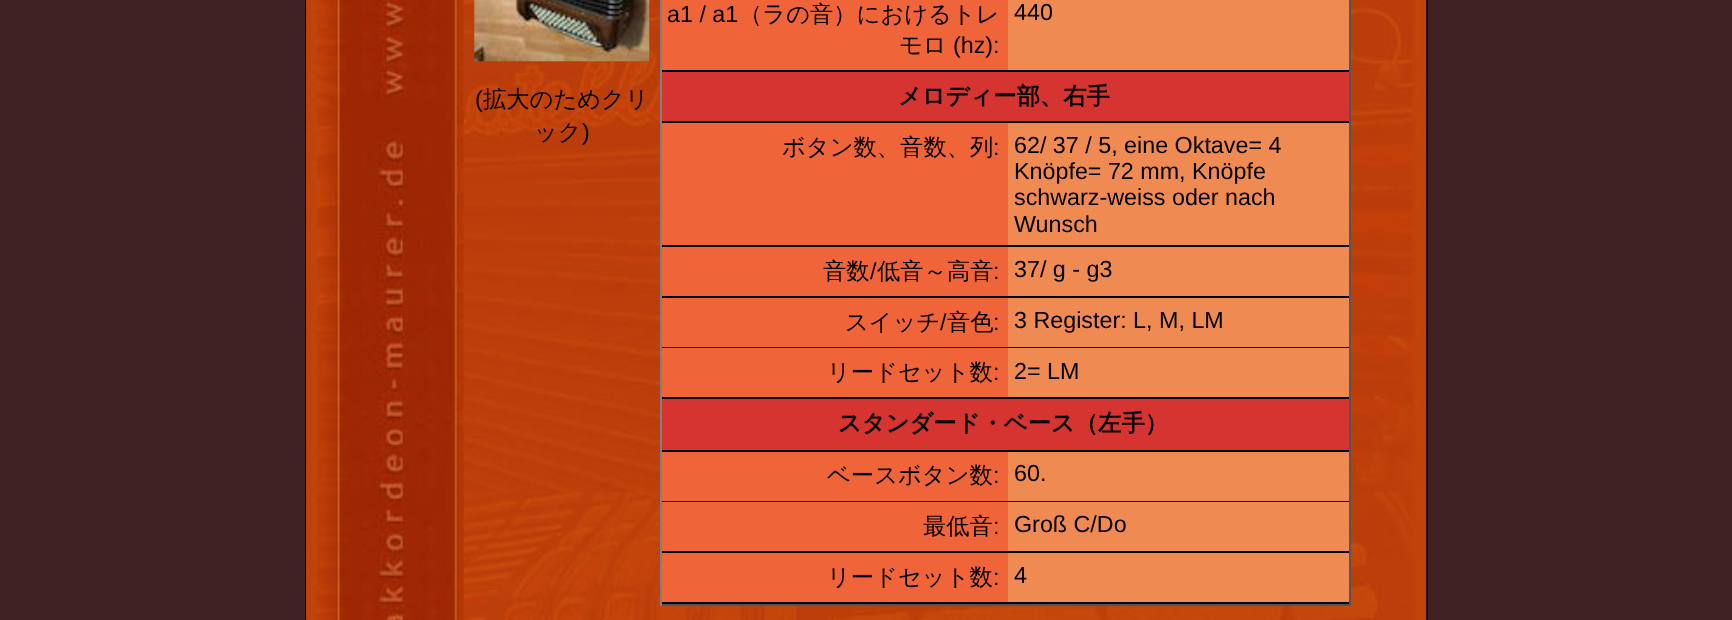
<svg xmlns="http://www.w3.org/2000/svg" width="1732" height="620">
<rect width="100%" height="100%" fill="#402225"/>
<rect x="305" width="1123" height="620" fill="#000"/>
<image x="306" y="0" width="1121" height="620" href="media/1.png"/>
<image x="306" y="0" width="158" height="620" href="media/2.png"/>
<image x="474" y="0" width="176" height="62" href="media/3.png"/>
<text x="475" y="107" style="font-family:Liberation Sans;font-size:23.3px;fill:#000">(</text>
<text x="483" y="107" style="font-family:WenQuanYi Zen Hei;font-size:23.3px;font-weight:500;fill:#000">拡大のためクリ</text>
<text x="534" y="140" style="font-family:WenQuanYi Zen Hei;font-size:23.3px;font-weight:500;fill:#000">ック</text>
<text x="582" y="140" style="font-family:Liberation Sans;font-size:23.3px;fill:#000">)</text>
<rect x="1349" width="2" height="606" fill="#555"/>
<rect x="660" y="604" width="691" height="2" fill="#555"/>
<rect x="660" width="2" height="606" fill="#808080"/>
<rect x="662" width="346" height="70" fill="#ef6539"/>
<rect x="662" y="70" width="687" height="2" fill="#000"/>
<text x="667" y="22" style="font-family:Liberation Sans;font-size:23.3px;fill:#000">a1 / a1</text>
<text x="739" y="22" style="font-family:WenQuanYi Zen Hei;font-size:23.3px;font-weight:500;fill:#000">（ラの音）におけるトレ</text>
<text x="899" y="53" style="font-family:WenQuanYi Zen Hei;font-size:23.3px;font-weight:500;fill:#000">モロ</text>
<text x="953" y="53" style="font-family:Liberation Sans;font-size:23.3px;fill:#000">(hz):</text>
<rect x="1008" width="341" height="70" fill="#ef8a52"/>
<text x="1014" y="20" style="font-family:Liberation Sans;font-size:23.3px;fill:#000">440</text>
<rect x="662" y="72" width="687" height="49" fill="#d63431"/>
<rect x="662" y="121" width="687" height="2" fill="#000"/>
<text x="898" y="104" style="font-family:WenQuanYi Zen Hei;font-size:23.3px;font-weight:bold;fill:#000">メロディー部、右手</text>
<rect x="662" y="123" width="346" height="122" fill="#ef6539"/>
<rect x="662" y="245" width="687" height="2" fill="#000"/>
<text x="782" y="155" style="font-family:WenQuanYi Zen Hei;font-size:23.3px;font-weight:500;fill:#000">ボタン数、音数、列</text>
<text x="993" y="155" style="font-family:Liberation Sans;font-size:23.3px;fill:#000">:</text>
<rect x="1008" y="123" width="341" height="122" fill="#ef8a52"/>
<text x="1014" y="153" style="font-family:Liberation Sans;font-size:23.3px;fill:#000">62/ 37 / 5, eine Oktave= 4</text>
<text x="1014" y="179" style="font-family:Liberation Sans;font-size:23.3px;fill:#000">Knöpfe= 72 mm, Knöpfe</text>
<text x="1014" y="205" style="font-family:Liberation Sans;font-size:23.3px;fill:#000">schwarz-weiss oder nach</text>
<text x="1014" y="232" style="font-family:Liberation Sans;font-size:23.3px;fill:#000">Wunsch</text>
<rect x="662" y="247" width="346" height="49" fill="#ef6539"/>
<rect x="662" y="296" width="687" height="2" fill="#000"/>
<text x="823" y="279" style="font-family:WenQuanYi Zen Hei;font-size:23.3px;font-weight:500;fill:#000">音数</text>
<text x="870" y="279" style="font-family:Liberation Sans;font-size:23.3px;fill:#000">/</text>
<text x="877" y="279" style="font-family:WenQuanYi Zen Hei;font-size:23.3px;font-weight:500;fill:#000">低音～高音</text>
<text x="993" y="279" style="font-family:Liberation Sans;font-size:23.3px;fill:#000">:</text>
<rect x="1008" y="247" width="341" height="49" fill="#ef8a52"/>
<text x="1014" y="277" style="font-family:Liberation Sans;font-size:23.3px;fill:#000">37/ g - g3</text>
<rect x="662" y="298" width="346" height="49" fill="#ef6539"/>
<rect x="662" y="347" width="687" height="1" fill="#000"/>
<text x="845" y="330" style="font-family:WenQuanYi Zen Hei;font-size:23.3px;font-weight:500;fill:#000">スイッチ</text>
<text x="940" y="330" style="font-family:Liberation Sans;font-size:23.3px;fill:#000">/</text>
<text x="947" y="330" style="font-family:WenQuanYi Zen Hei;font-size:23.3px;font-weight:500;fill:#000">音色</text>
<text x="993" y="330" style="font-family:Liberation Sans;font-size:23.3px;fill:#000">:</text>
<rect x="1008" y="298" width="341" height="49" fill="#ef8a52"/>
<text x="1014" y="328" style="font-family:Liberation Sans;font-size:23.3px;fill:#000">3 Register: L, M, LM</text>
<rect x="662" y="348" width="346" height="49" fill="#ef6539"/>
<rect x="662" y="397" width="687" height="2" fill="#000"/>
<text x="827" y="380" style="font-family:WenQuanYi Zen Hei;font-size:23.3px;font-weight:500;fill:#000">リードセット数</text>
<text x="993" y="380" style="font-family:Liberation Sans;font-size:23.3px;fill:#000">:</text>
<rect x="1008" y="348" width="341" height="49" fill="#ef8a52"/>
<text x="1014" y="379" style="font-family:Liberation Sans;font-size:23.3px;fill:#000">2= LM</text>
<rect x="662" y="399" width="687" height="51" fill="#d63431"/>
<rect x="662" y="450" width="687" height="2" fill="#000"/>
<text x="838" y="431" style="font-family:WenQuanYi Zen Hei;font-size:23.3px;font-weight:bold;fill:#000">スタンダード・ベース（左手）</text>
<rect x="662" y="452" width="346" height="49" fill="#ef6539"/>
<rect x="662" y="501" width="687" height="1" fill="#000"/>
<text x="827" y="483" style="font-family:WenQuanYi Zen Hei;font-size:23.3px;font-weight:500;fill:#000">ベースボタン数</text>
<text x="993" y="483" style="font-family:Liberation Sans;font-size:23.3px;fill:#000">:</text>
<rect x="1008" y="452" width="341" height="49" fill="#ef8a52"/>
<text x="1014" y="481" style="font-family:Liberation Sans;font-size:23.3px;fill:#000">60.</text>
<rect x="662" y="502" width="346" height="49" fill="#ef6539"/>
<rect x="662" y="551" width="687" height="2" fill="#000"/>
<text x="923" y="534" style="font-family:WenQuanYi Zen Hei;font-size:23.3px;font-weight:500;fill:#000">最低音</text>
<text x="993" y="534" style="font-family:Liberation Sans;font-size:23.3px;fill:#000">:</text>
<rect x="1008" y="502" width="341" height="49" fill="#ef8a52"/>
<text x="1014" y="532" style="font-family:Liberation Sans;font-size:23.3px;fill:#000">Groß C/Do</text>
<rect x="662" y="553" width="346" height="49" fill="#ef6539"/>
<rect x="662" y="602" width="687" height="2" fill="#000"/>
<text x="827" y="585" style="font-family:WenQuanYi Zen Hei;font-size:23.3px;font-weight:500;fill:#000">リードセット数</text>
<text x="993" y="585" style="font-family:Liberation Sans;font-size:23.3px;fill:#000">:</text>
<rect x="1008" y="553" width="341" height="49" fill="#ef8a52"/>
<text x="1014" y="583" style="font-family:Liberation Sans;font-size:23.3px;fill:#000">4</text>
</svg>
